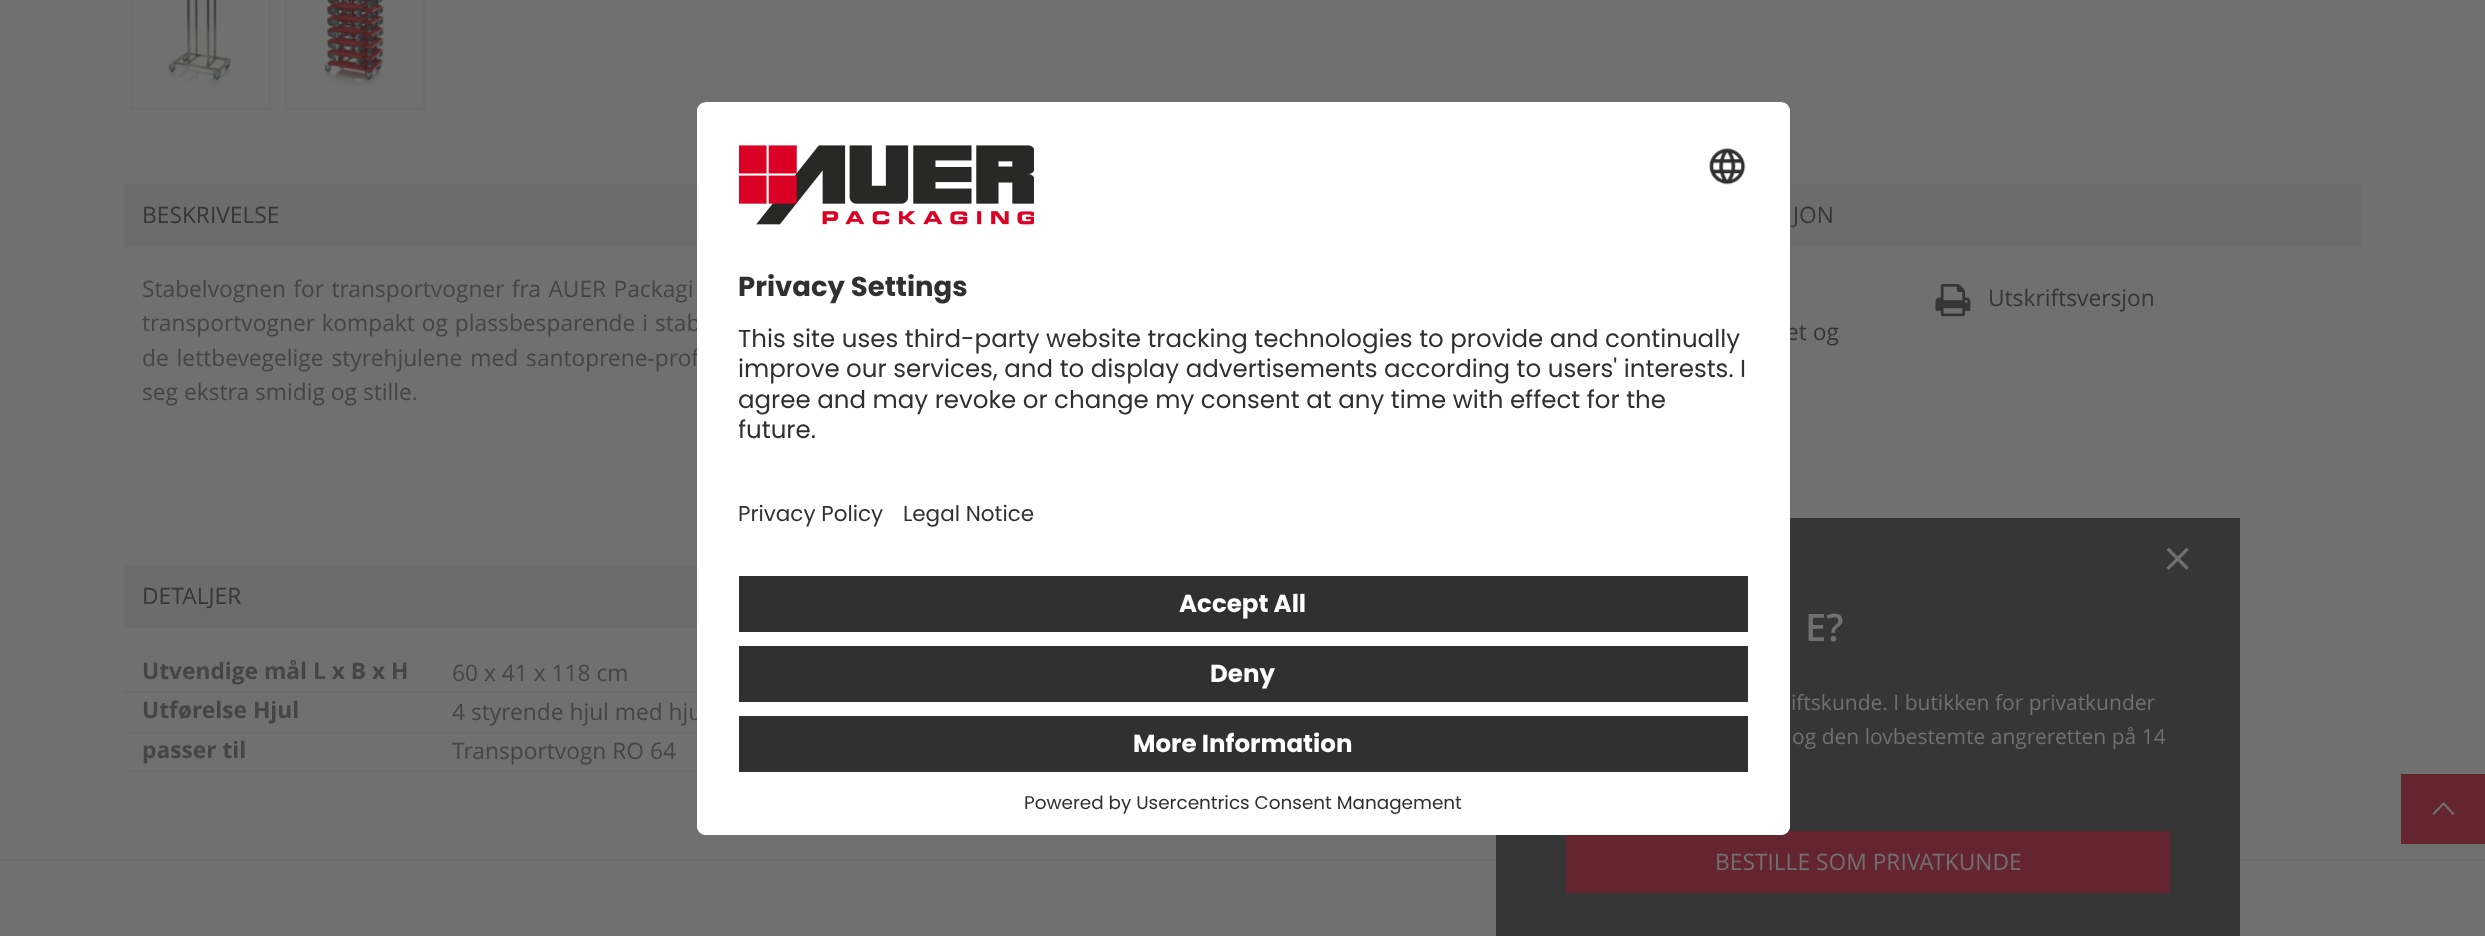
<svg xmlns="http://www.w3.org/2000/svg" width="2485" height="936">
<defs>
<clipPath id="clip1"><rect x="697" y="102" width="1093" height="733" rx="9"/></clipPath>
<clipPath id="clip2"><path d="M706 102h1075c5 0 9 4 9 9v444h-1093v-444c0-5 4-9 9-9z"/></clipPath>
<clipPath id="clip3"><rect x="739" y="317" width="1009" height="136"/></clipPath>
</defs>
<rect width="100%" height="100%" fill="#707070"/>
<rect x="132" y="-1" width="138" height="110" fill="none" stroke="#6c6c6c" stroke-width="2"/>
<image x="167" y="0" width="65" height="88" href="media/1.png"/>
<rect x="286" y="-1" width="138" height="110" fill="none" stroke="#6c6c6c" stroke-width="2"/>
<image x="323" y="0" width="63" height="88" href="media/2.png"/>
<rect x="124" y="184" width="573" height="63" fill="#6c6c6c"/>
<text x="142" y="223" style="font-family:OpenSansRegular;font-size:22.75px;fill:#363636">BESKRIVELSE</text>
<text x="142" y="297" word-spacing="1.5" style="font-family:OpenSansRegular;font-size:22.75px;fill:#454545">Stabelvognen for transportvogner fra AUER Packagi</text>
<text x="142" y="331" word-spacing="1" style="font-family:OpenSansRegular;font-size:22.75px;fill:#454545">transportvogner kompakt og plassbesparende i stab</text>
<text x="142" y="366" word-spacing="2" style="font-family:OpenSansRegular;font-size:22.75px;fill:#454545">de lettbevegelige styrehjulene med santoprene-prof</text>
<text x="142" y="400" style="font-family:OpenSansRegular;font-size:22.75px;fill:#454545">seg ekstra smidig og stille.</text>
<rect x="124" y="565" width="573" height="63" fill="#6c6c6c"/>
<text x="142" y="604" style="font-family:OpenSansRegular;font-size:22.75px;fill:#363636">DETALJER</text>
<text x="142" y="679" style="font-family:Open Sans;font-size:22.75px;font-weight:bold;fill:#454545">Utvendige mål L x B x H</text>
<rect x="124" y="691" width="573" height="2" fill="#6c6c6c"/>
<text x="452" y="681" style="font-family:OpenSansRegular;font-size:22.75px;fill:#454545">60 x 41 x 118 cm</text>
<text x="142" y="718" style="font-family:Open Sans;font-size:22.75px;font-weight:bold;fill:#454545">Utførelse Hjul</text>
<rect x="124" y="732" width="573" height="2" fill="#6c6c6c"/>
<text x="452" y="720" style="font-family:OpenSansRegular;font-size:22.75px;fill:#454545">4 styrende hjul med hju</text>
<text x="142" y="758" style="font-family:Open Sans;font-size:22.75px;font-weight:bold;fill:#454545">passer til</text>
<rect x="124" y="770" width="573" height="2" fill="#6c6c6c"/>
<text x="452" y="759" style="font-family:OpenSansRegular;font-size:22.75px;fill:#454545">Transportvogn RO 64</text>
<rect x="1790" y="184" width="571" height="63" fill="#6c6c6c"/>
<text x="1793" y="223" style="font-family:OpenSansRegular;font-size:22.75px;fill:#363636">JON</text>
<image x="1935" y="284" width="36" height="33" href="media/3.png"/>
<text x="1988" y="306" style="font-family:OpenSansRegular;font-size:22.75px;fill:#363636">Utskriftsversjon</text>
<text x="1786" y="340" style="font-family:OpenSansRegular;font-size:22.75px;fill:#363636">et og</text>
<rect y="859" width="2485" height="2" fill="#6c6c6c"/>
<rect x="1496" y="518" width="744" height="418" fill="#363636"/>
<rect x="1566" y="831" width="604" height="62" fill="#65252f"/>
<rect x="697" y="102" width="1093" height="733" rx="9" fill="#fff"/>
<g clip-path="url(#clip1)">
<g clip-path="url(#clip2)">
<rect x="697" y="103" width="1093" height="452" fill="#fff"/>
</g>
</g>
<image x="739" y="145" width="295" height="80" href="media/4.png"/>
<image x="1709" y="148" width="37" height="37" href="media/5.png"/>
<text x="738" y="296" style="font-family:Poppins;font-size:27.5px;font-weight:bold;fill:#303030">Privacy Settings</text>
<text x="738" y="347" style="font-family:Poppins;font-size:24.5px;fill:#303030">This site uses third-party website tracking technologies to provide and continually</text>
<text x="738" y="377" style="font-family:Poppins;font-size:24.5px;fill:#303030">improve our services, and to display advertisements according to users' interests. I</text>
<g clip-path="url(#clip3)">
<text x="738" y="408" style="font-family:Poppins;font-size:24.5px;fill:#303030">agree and may revoke or change my consent at any time with effect for the</text>
<text x="738" y="438" style="font-family:Poppins;font-size:24.5px;fill:#303030">future.</text>
</g>
<text x="738" y="521" style="font-family:Poppins;font-size:21.5px;fill:#303030">Privacy Policy</text>
<text x="903" y="521" style="font-family:Poppins;font-size:21.5px;fill:#303030">Legal Notice</text>
<path d="M697 555h1093v271c0 5-4 9-9 9h-1075c-5 0-9-4-9-9z" fill="#fff"/>
<rect x="739" y="576" width="1009" height="56" fill="#303030"/>
<text x="1179" y="612" style="font-family:Poppins;font-size:24.5px;font-weight:bold;fill:#fff">Accept All</text>
<rect x="739" y="646" width="1009" height="56" fill="#303030"/>
<text x="1210" y="682" style="font-family:Poppins;font-size:24.5px;font-weight:bold;fill:#fff">Deny</text>
<rect x="739" y="716" width="1009" height="56" fill="#303030"/>
<text x="1133" y="752" style="font-family:Poppins;font-size:24.5px;font-weight:bold;fill:#fff">More Information</text>
<text x="1024" y="809" style="font-family:Poppins;font-size:18.4px;fill:#303030">Powered by Usercentrics Consent Management</text>
<image x="2166" y="547" width="23" height="23" href="media/6.png"/>
<text x="1805" y="641" style="font-family:Open Sans;font-size:38px;font-weight:600;fill:#707070">E?</text>
<text x="1791" y="710" style="font-family:OpenSansRegular;font-size:21px;fill:#707070">iftskunde. I butikken for privatkunder</text>
<text x="1792" y="744" style="font-family:OpenSansRegular;font-size:21px;fill:#707070">og den lovbestemte angreretten på 14</text>
<text x="1715" y="870" style="font-family:OpenSansRegular;font-size:22.75px;fill:#707070">BESTILLE SOM PRIVATKUNDE</text>
<rect x="2401" y="774" width="84" height="70" fill="#65252f"/>
<path d="M2453 815l-9.5-10l-9.5 10l-1.5-1.5l11-11.5l11 11.5z" fill="#707070"/>
</svg>
